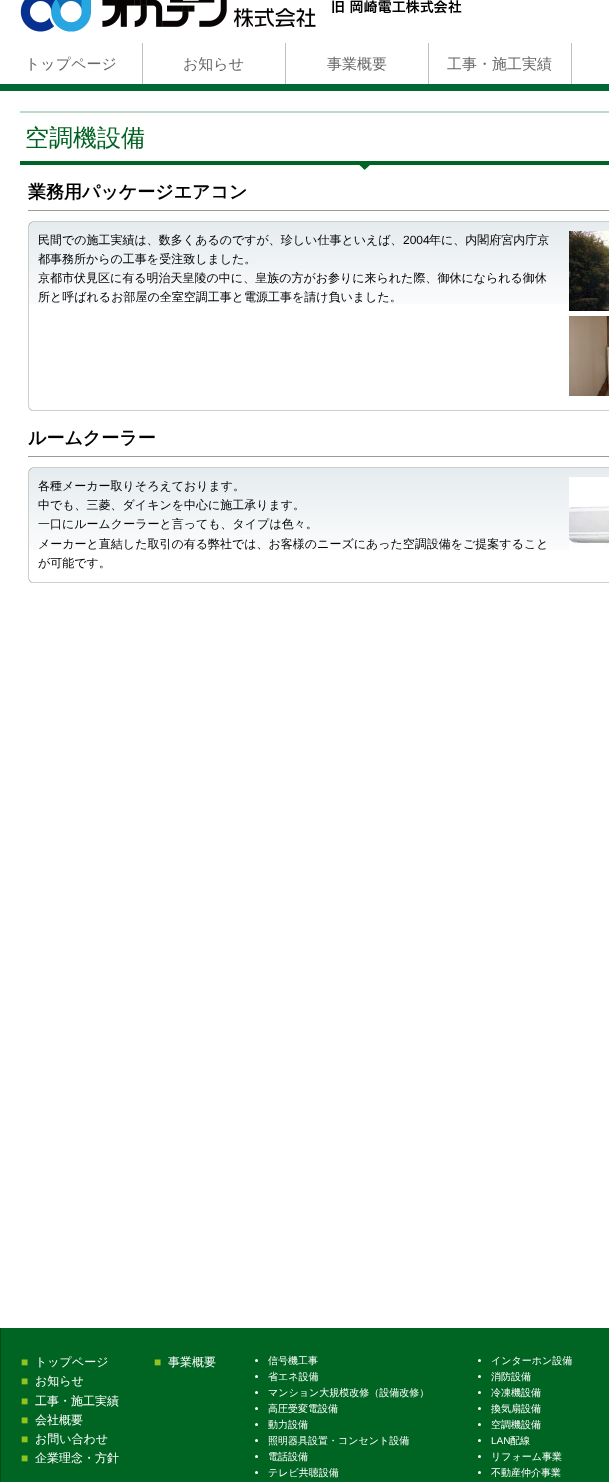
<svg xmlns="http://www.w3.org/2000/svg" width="609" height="1482">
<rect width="100%" height="100%" fill="#fff"/>
<image x="20" y="0" width="442" height="32" href="media/1.png"/>
<rect y="84" width="609" height="7" fill="#006935"/>
<rect x="142" y="43" width="1" height="41" fill="#bfbfbf"/>
<text x="25" y="69" style="font-family:WenQuanYi Zen Hei;font-size:15px;font-weight:500;fill:#666">トップページ</text>
<rect x="285" y="43" width="1" height="41" fill="#bfbfbf"/>
<text x="183" y="69" style="font-family:WenQuanYi Zen Hei;font-size:15px;font-weight:500;fill:#666">お知らせ</text>
<rect x="428" y="43" width="1" height="41" fill="#bfbfbf"/>
<text x="327" y="69" style="font-family:WenQuanYi Zen Hei;font-size:15px;font-weight:500;fill:#666">事業概要</text>
<rect x="571" y="43" width="1" height="41" fill="#bfbfbf"/>
<text x="447" y="69" style="font-family:WenQuanYi Zen Hei;font-size:15px;font-weight:500;fill:#666">工事・施工実績</text>
<image x="359" y="165" width="11" height="5" href="media/2.png"/>
<rect x="20" y="111" width="589" height="2" fill="#bfd8c8"/>
<rect x="20" y="161" width="589" height="4" fill="#006422"/>
<text x="25" y="146" style="font-family:WenQuanYi Zen Hei;font-size:24px;font-weight:500;fill:#006321">空調機設備</text>
<rect x="28" y="210" width="581" height="1" fill="#9b9a9a"/>
<text x="28" y="198" style="font-family:WenQuanYi Zen Hei;font-size:18px;font-weight:bold;fill:#000">業務用パッケージエアコン</text>
<rect x="28" y="304" width="1" height="107" fill="#cecfcf"/>
<image x="28" y="221" width="581" height="83" href="media/3.png"/>
<image x="28" y="407" width="581" height="4" href="media/4.png"/>
<text x="38" y="244" style="font-family:WenQuanYi Zen Hei;font-size:12px;font-weight:500;fill:#000">民間での施工実績は、数多くあるのですが、珍しい仕事といえば、</text>
<text x="403" y="244" style="font-family:Liberation Sans;font-size:12px;fill:#000">2004</text>
<text x="429" y="244" style="font-family:WenQuanYi Zen Hei;font-size:12px;font-weight:500;fill:#000">年に、内閣府宮内庁京</text>
<text x="38" y="263" style="font-family:WenQuanYi Zen Hei;font-size:12px;font-weight:500;fill:#000">都事務所からの工事を受注致しました。</text>
<text x="38" y="282" style="font-family:WenQuanYi Zen Hei;font-size:12px;font-weight:500;fill:#000">京都市伏見区に有る明治天皇陵の中に、皇族の方がお参りに来られた際、御休になられる御休</text>
<text x="38" y="301" style="font-family:WenQuanYi Zen Hei;font-size:12px;font-weight:500;fill:#000">所と呼ばれるお部屋の全室空調工事と電源工事を請け負いました。</text>
<image x="569" y="231" width="40" height="80" href="media/5.png"/>
<image x="569" y="316" width="40" height="80" href="media/6.png"/>
<rect x="28" y="456" width="581" height="1" fill="#9b9a9a"/>
<text x="28" y="444" style="font-family:WenQuanYi Zen Hei;font-size:18px;font-weight:bold;fill:#000">ルームクーラー</text>
<rect x="28" y="550" width="1" height="33" fill="#cecfcf"/>
<image x="28" y="467" width="581" height="83" href="media/3.png"/>
<image x="28" y="579" width="581" height="4" href="media/4.png"/>
<text x="38" y="490" style="font-family:WenQuanYi Zen Hei;font-size:12px;font-weight:500;fill:#000">各種メーカー取りそろえております。</text>
<text x="38" y="509" style="font-family:WenQuanYi Zen Hei;font-size:12px;font-weight:500;fill:#000">中でも、三菱、ダイキンを中心に施工承ります。</text>
<text x="38" y="528" style="font-family:WenQuanYi Zen Hei;font-size:12px;font-weight:500;fill:#000">一口にルームクーラーと言っても、タイプは色々。</text>
<text x="38" y="548" style="font-family:WenQuanYi Zen Hei;font-size:12px;font-weight:500;fill:#000">メーカーと直結した取引の有る弊社では、お客様のニーズにあった空調設備をご提案すること</text>
<text x="38" y="567" style="font-family:WenQuanYi Zen Hei;font-size:12px;font-weight:500;fill:#000">が可能です。</text>
<image x="569" y="477" width="40" height="73" href="media/7.png"/>
<rect x="1" y="1328" width="608" height="154" fill="#006422"/>
<rect y="1328" width="1" height="154" fill="#004b19"/>
<text x="21" y="1366" style="font-family:Liberation Sans;font-size:12px;fill:#90c31f">■</text>
<text x="35" y="1366" style="font-family:WenQuanYi Zen Hei;font-size:12px;font-weight:500;fill:#fff">トップページ</text>
<text x="21" y="1385" style="font-family:Liberation Sans;font-size:12px;fill:#90c31f">■</text>
<text x="35" y="1385" style="font-family:WenQuanYi Zen Hei;font-size:12px;font-weight:500;fill:#fff">お知らせ</text>
<text x="21" y="1405" style="font-family:Liberation Sans;font-size:12px;fill:#90c31f">■</text>
<text x="35" y="1405" style="font-family:WenQuanYi Zen Hei;font-size:12px;font-weight:500;fill:#fff">工事・施工実績</text>
<text x="21" y="1424" style="font-family:Liberation Sans;font-size:12px;fill:#90c31f">■</text>
<text x="35" y="1424" style="font-family:WenQuanYi Zen Hei;font-size:12px;font-weight:500;fill:#fff">会社概要</text>
<text x="21" y="1443" style="font-family:Liberation Sans;font-size:12px;fill:#90c31f">■</text>
<text x="35" y="1443" style="font-family:WenQuanYi Zen Hei;font-size:12px;font-weight:500;fill:#fff">お問い合わせ</text>
<text x="21" y="1462" style="font-family:Liberation Sans;font-size:12px;fill:#90c31f">■</text>
<text x="35" y="1462" style="font-family:WenQuanYi Zen Hei;font-size:12px;font-weight:500;fill:#fff">企業理念・方針</text>
<text x="154" y="1366" style="font-family:Liberation Sans;font-size:12px;fill:#90c31f">■</text>
<text x="168" y="1366" style="font-family:WenQuanYi Zen Hei;font-size:12px;font-weight:500;fill:#fff">事業概要</text>
<circle cx="256.5" cy="1360.5" r="1.5" fill="#fff"/>
<text x="268" y="1364" style="font-family:WenQuanYi Zen Hei;font-size:10px;font-weight:500;fill:#fff">信号機工事</text>
<circle cx="256.5" cy="1376.5" r="1.5" fill="#fff"/>
<text x="268" y="1380" style="font-family:WenQuanYi Zen Hei;font-size:10px;font-weight:500;fill:#fff">省エネ設備</text>
<circle cx="256.5" cy="1392.5" r="1.5" fill="#fff"/>
<text x="268" y="1396" style="font-family:WenQuanYi Zen Hei;font-size:10px;font-weight:500;fill:#fff">マンション大規模改修（設備改修）</text>
<circle cx="256.5" cy="1408.5" r="1.5" fill="#fff"/>
<text x="268" y="1412" style="font-family:WenQuanYi Zen Hei;font-size:10px;font-weight:500;fill:#fff">高圧受変電設備</text>
<circle cx="256.5" cy="1424.5" r="1.5" fill="#fff"/>
<text x="268" y="1428" style="font-family:WenQuanYi Zen Hei;font-size:10px;font-weight:500;fill:#fff">動力設備</text>
<circle cx="256.5" cy="1440.5" r="1.5" fill="#fff"/>
<text x="268" y="1444" style="font-family:WenQuanYi Zen Hei;font-size:10px;font-weight:500;fill:#fff">照明器具設置・コンセント設備</text>
<circle cx="256.5" cy="1456.5" r="1.5" fill="#fff"/>
<text x="268" y="1460" style="font-family:WenQuanYi Zen Hei;font-size:10px;font-weight:500;fill:#fff">電話設備</text>
<circle cx="256.5" cy="1472.5" r="1.5" fill="#fff"/>
<text x="268" y="1476" style="font-family:WenQuanYi Zen Hei;font-size:10px;font-weight:500;fill:#fff">テレビ共聴設備</text>
<circle cx="479.5" cy="1360.5" r="1.5" fill="#fff"/>
<text x="491" y="1364" style="font-family:WenQuanYi Zen Hei;font-size:10px;font-weight:500;fill:#fff">インターホン設備</text>
<circle cx="479.5" cy="1376.5" r="1.5" fill="#fff"/>
<text x="491" y="1380" style="font-family:WenQuanYi Zen Hei;font-size:10px;font-weight:500;fill:#fff">消防設備</text>
<circle cx="479.5" cy="1392.5" r="1.5" fill="#fff"/>
<text x="491" y="1396" style="font-family:WenQuanYi Zen Hei;font-size:10px;font-weight:500;fill:#fff">冷凍機設備</text>
<circle cx="479.5" cy="1408.5" r="1.5" fill="#fff"/>
<text x="491" y="1412" style="font-family:WenQuanYi Zen Hei;font-size:10px;font-weight:500;fill:#fff">換気扇設備</text>
<circle cx="479.5" cy="1424.5" r="1.5" fill="#fff"/>
<text x="491" y="1428" style="font-family:WenQuanYi Zen Hei;font-size:10px;font-weight:500;fill:#fff">空調機設備</text>
<circle cx="479.5" cy="1440.5" r="1.5" fill="#fff"/>
<text x="491" y="1444" style="font-family:Liberation Sans;font-size:10px;fill:#fff">LAN</text>
<text x="510" y="1444" style="font-family:WenQuanYi Zen Hei;font-size:10px;font-weight:500;fill:#fff">配線</text>
<circle cx="479.5" cy="1456.5" r="1.5" fill="#fff"/>
<text x="491" y="1460" style="font-family:WenQuanYi Zen Hei;font-size:10px;font-weight:500;fill:#fff">リフォーム事業</text>
<circle cx="479.5" cy="1472.5" r="1.5" fill="#fff"/>
<text x="491" y="1476" style="font-family:WenQuanYi Zen Hei;font-size:10px;font-weight:500;fill:#fff">不動産仲介事業</text>
</svg>
